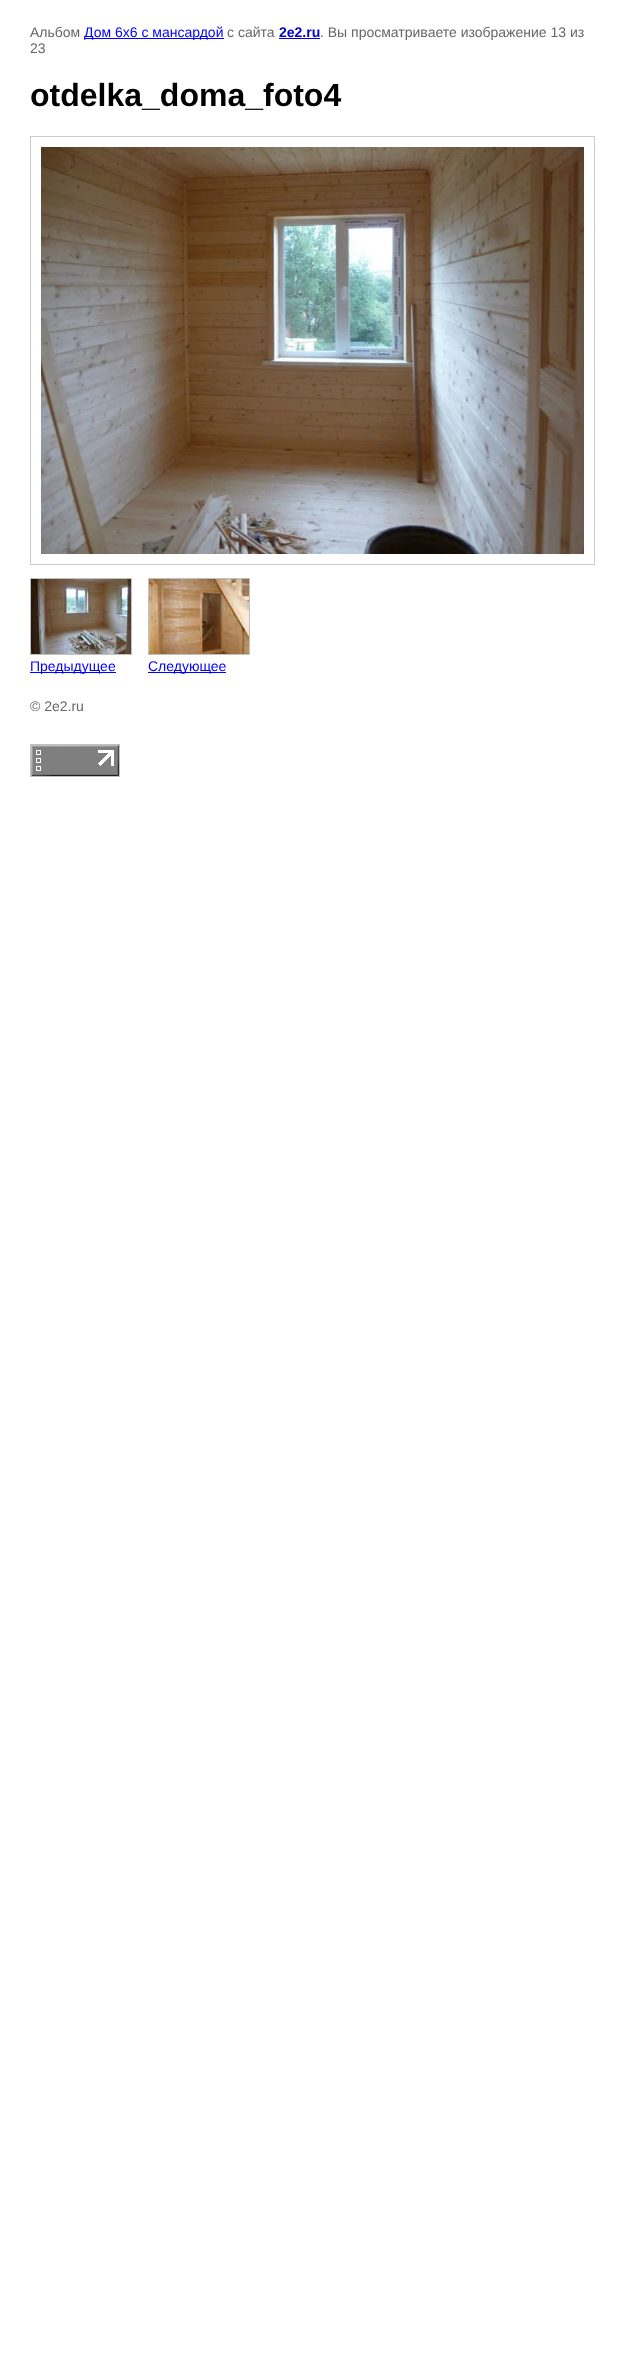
<svg xmlns="http://www.w3.org/2000/svg" width="625" height="2371">
<rect width="100%" height="100%" fill="#fff"/>
<text x="30" y="37" style="font-family:Liberation Sans;font-size:14px;fill:#666">Альбом</text>
<rect x="84" y="38" width="140" height="1" fill="#00f"/>
<text x="84" y="37" style="font-family:Liberation Sans;font-size:14px;fill:#00f">Дом 6х6 с мансардой</text>
<text x="227" y="37" style="font-family:Liberation Sans;font-size:14px;fill:#666">с сайта</text>
<text x="279" y="37" style="font-family:Liberation Sans;font-size:14px;font-weight:bold;fill:#00c">2e2.ru</text>
<rect x="279" y="38" width="41" height="1" fill="#00c"/>
<text x="320" y="37" style="font-family:Liberation Sans;font-size:14px;fill:#666">. Вы просматриваете изображение 13 из</text>
<text x="30" y="53" style="font-family:Liberation Sans;font-size:14px;fill:#666">23</text>
<text x="30" y="106" style="font-family:Liberation Sans;font-size:32px;font-weight:bold;fill:#000">otdelka_doma_foto4</text>
<rect x="30.5" y="136.5" width="564" height="428" fill="none" stroke="#ccc"/>
<image x="41" y="147" width="543" height="407" href="media/1.png"/>
<rect x="30.5" y="578.5" width="101" height="76" fill="none" stroke="#c0c0c0"/>
<image x="31" y="579" width="100" height="75" href="media/2.png"/>
<rect x="30" y="672" width="86" height="1" fill="#00f"/>
<text x="30" y="671" style="font-family:Liberation Sans;font-size:14px;fill:#00f">Предыдущее</text>
<rect x="148.5" y="578.5" width="101" height="76" fill="none" stroke="#c0c0c0"/>
<image x="149" y="579" width="100" height="75" href="media/3.png"/>
<rect x="148" y="672" width="78" height="1" fill="#00f"/>
<text x="148" y="671" style="font-family:Liberation Sans;font-size:14px;fill:#00f">Следующее</text>
<text x="30" y="711" style="font-family:Liberation Sans;font-size:14px;fill:#666">© 2e2.ru</text>
<rect x="30.5" y="744.5" width="89" height="32" fill="none" stroke="#c0c0c0"/>
<image x="31" y="745" width="88" height="31" href="media/4.png"/>
</svg>
